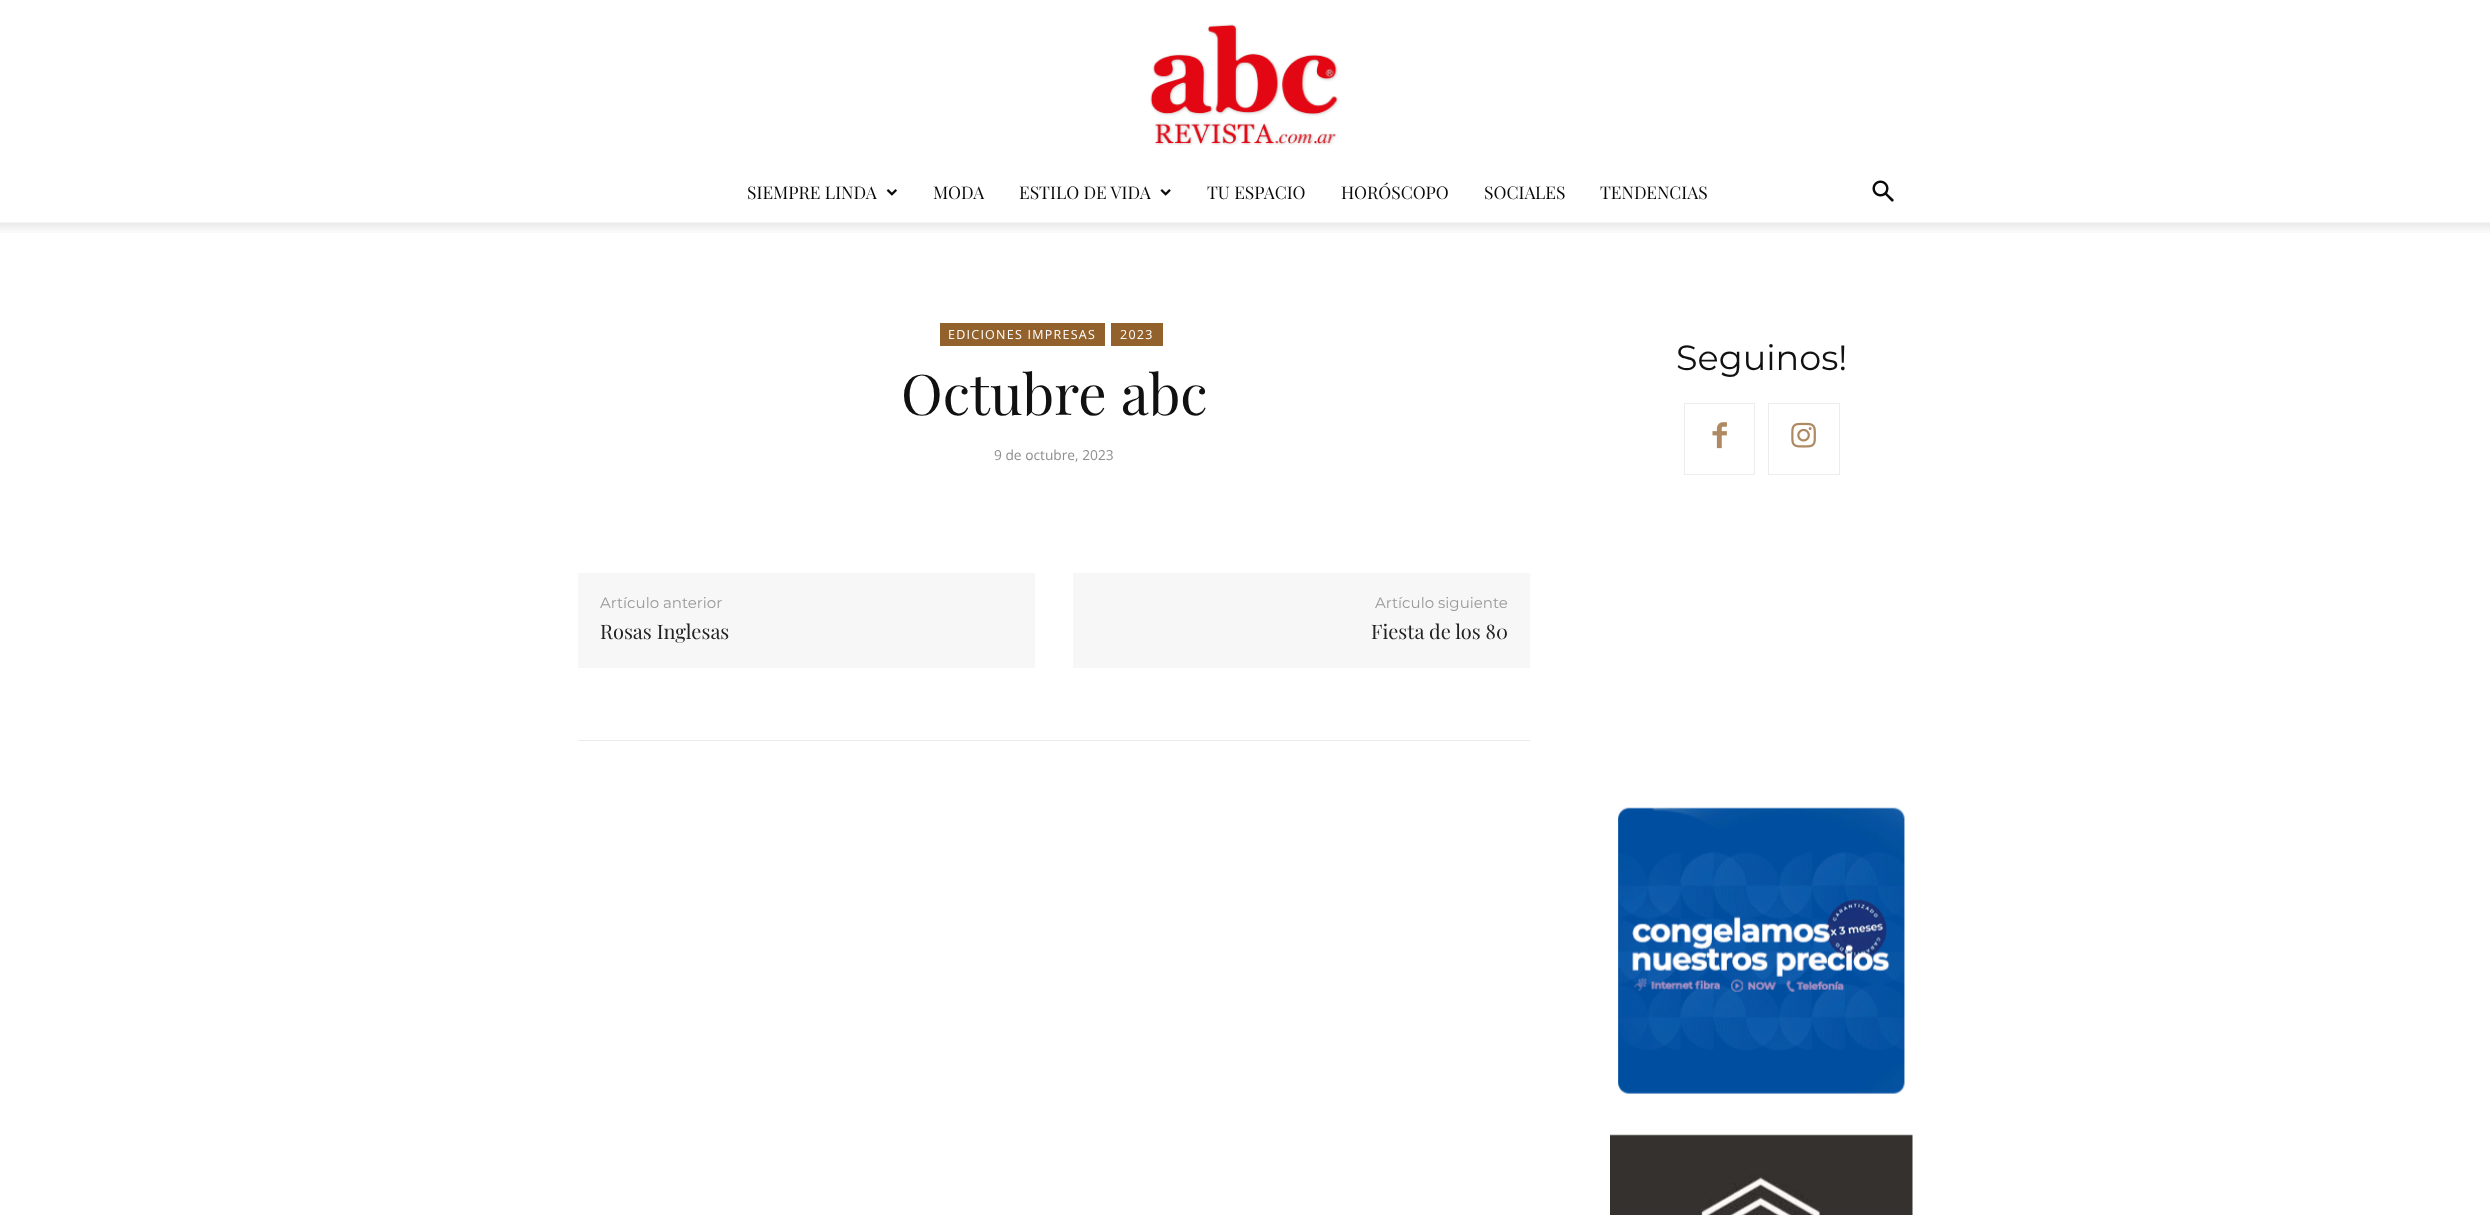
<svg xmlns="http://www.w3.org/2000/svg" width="2490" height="1215">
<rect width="100%" height="100%" fill="#fff"/>
<image x="1150" y="24" width="190" height="121" href="media/1.png"/>
<text x="747" y="199" style="font-family:Playfair Display;font-size:17.5px;fill:#0a0a0a">SIEMPRE LINDA</text>
<image x="886" y="189" width="11" height="7" href="media/2.png"/>
<text x="933" y="199" style="font-family:Playfair Display;font-size:17.5px;fill:#0a0a0a">MODA</text>
<text x="1019" y="199" style="font-family:Playfair Display;font-size:17.5px;fill:#0a0a0a">ESTILO DE VIDA</text>
<image x="1160" y="189" width="11" height="7" href="media/3.png"/>
<text x="1207" y="199" style="font-family:Playfair Display;font-size:17.5px;fill:#0a0a0a">TU ESPACIO</text>
<text x="1341" y="199" style="font-family:Playfair Display;font-size:17.5px;fill:#0a0a0a">HORÓSCOPO</text>
<text x="1484" y="199" style="font-family:Playfair Display;font-size:17.5px;fill:#0a0a0a">SOCIALES</text>
<text x="1600" y="199" style="font-family:Playfair Display;font-size:17.5px;fill:#0a0a0a">TENDENCIAS</text>
<image x="1872" y="180" width="22" height="22" href="media/4.png"/>
<image x="0" y="222" width="2490" height="11" href="media/5.png"/>
<rect x="940" y="323" width="165" height="23" fill="#93612c"/>
<text x="948" y="339" style="font-family:Open Sans;font-size:12.5px;letter-spacing:1.25px;fill:#fff">EDICIONES IMPRESAS</text>
<rect x="1111" y="323" width="52" height="23" fill="#93612c"/>
<text x="1120" y="339" style="font-family:Open Sans;font-size:12.5px;letter-spacing:1.25px;fill:#fff">2023</text>
<text x="901" y="415" style="font-family:Playfair Display;font-size:56.25px;fill:#111">Octubre abc</text>
<text x="994" y="460" style="font-family:Open Sans;font-size:13.75px;fill:#8e8e8e">9 de octubre, 2023</text>
<rect x="578" y="573" width="457" height="95" fill="#f7f7f7"/>
<text x="600" y="608" style="font-family:Montserrat;font-size:15px;font-weight:100;fill:#999">Artículo anterior</text>
<text x="600" y="639" style="font-family:Playfair Display;font-size:20px;fill:#222">Rosas Inglesas</text>
<rect x="1073" y="573" width="457" height="95" fill="#f7f7f7"/>
<text x="1375" y="608" style="font-family:Montserrat;font-size:15px;font-weight:100;fill:#999">Artículo siguiente</text>
<text x="1371" y="639" style="font-family:Playfair Display;font-size:20px;fill:#222">Fiesta de los 80</text>
<rect x="578" y="740" width="952" height="1" fill="#ebebeb"/>
<text x="1676" y="370" style="font-family:Montserrat;font-size:35px;font-weight:100;fill:#111">Seguinos!</text>
<rect x="1684.5" y="403.5" width="70" height="71" fill="none" stroke="#ededed"/>
<image x="1712" y="422" width="15" height="27" href="media/6.png"/>
<rect x="1768.5" y="403.5" width="71" height="71" fill="none" stroke="#ededed"/>
<image x="1791" y="422" width="25" height="26" href="media/7.png"/>
<image x="1618" y="807" width="287" height="287" href="media/8.png"/>
<image x="1610" y="1134" width="303" height="81" href="media/9.png"/>
</svg>
